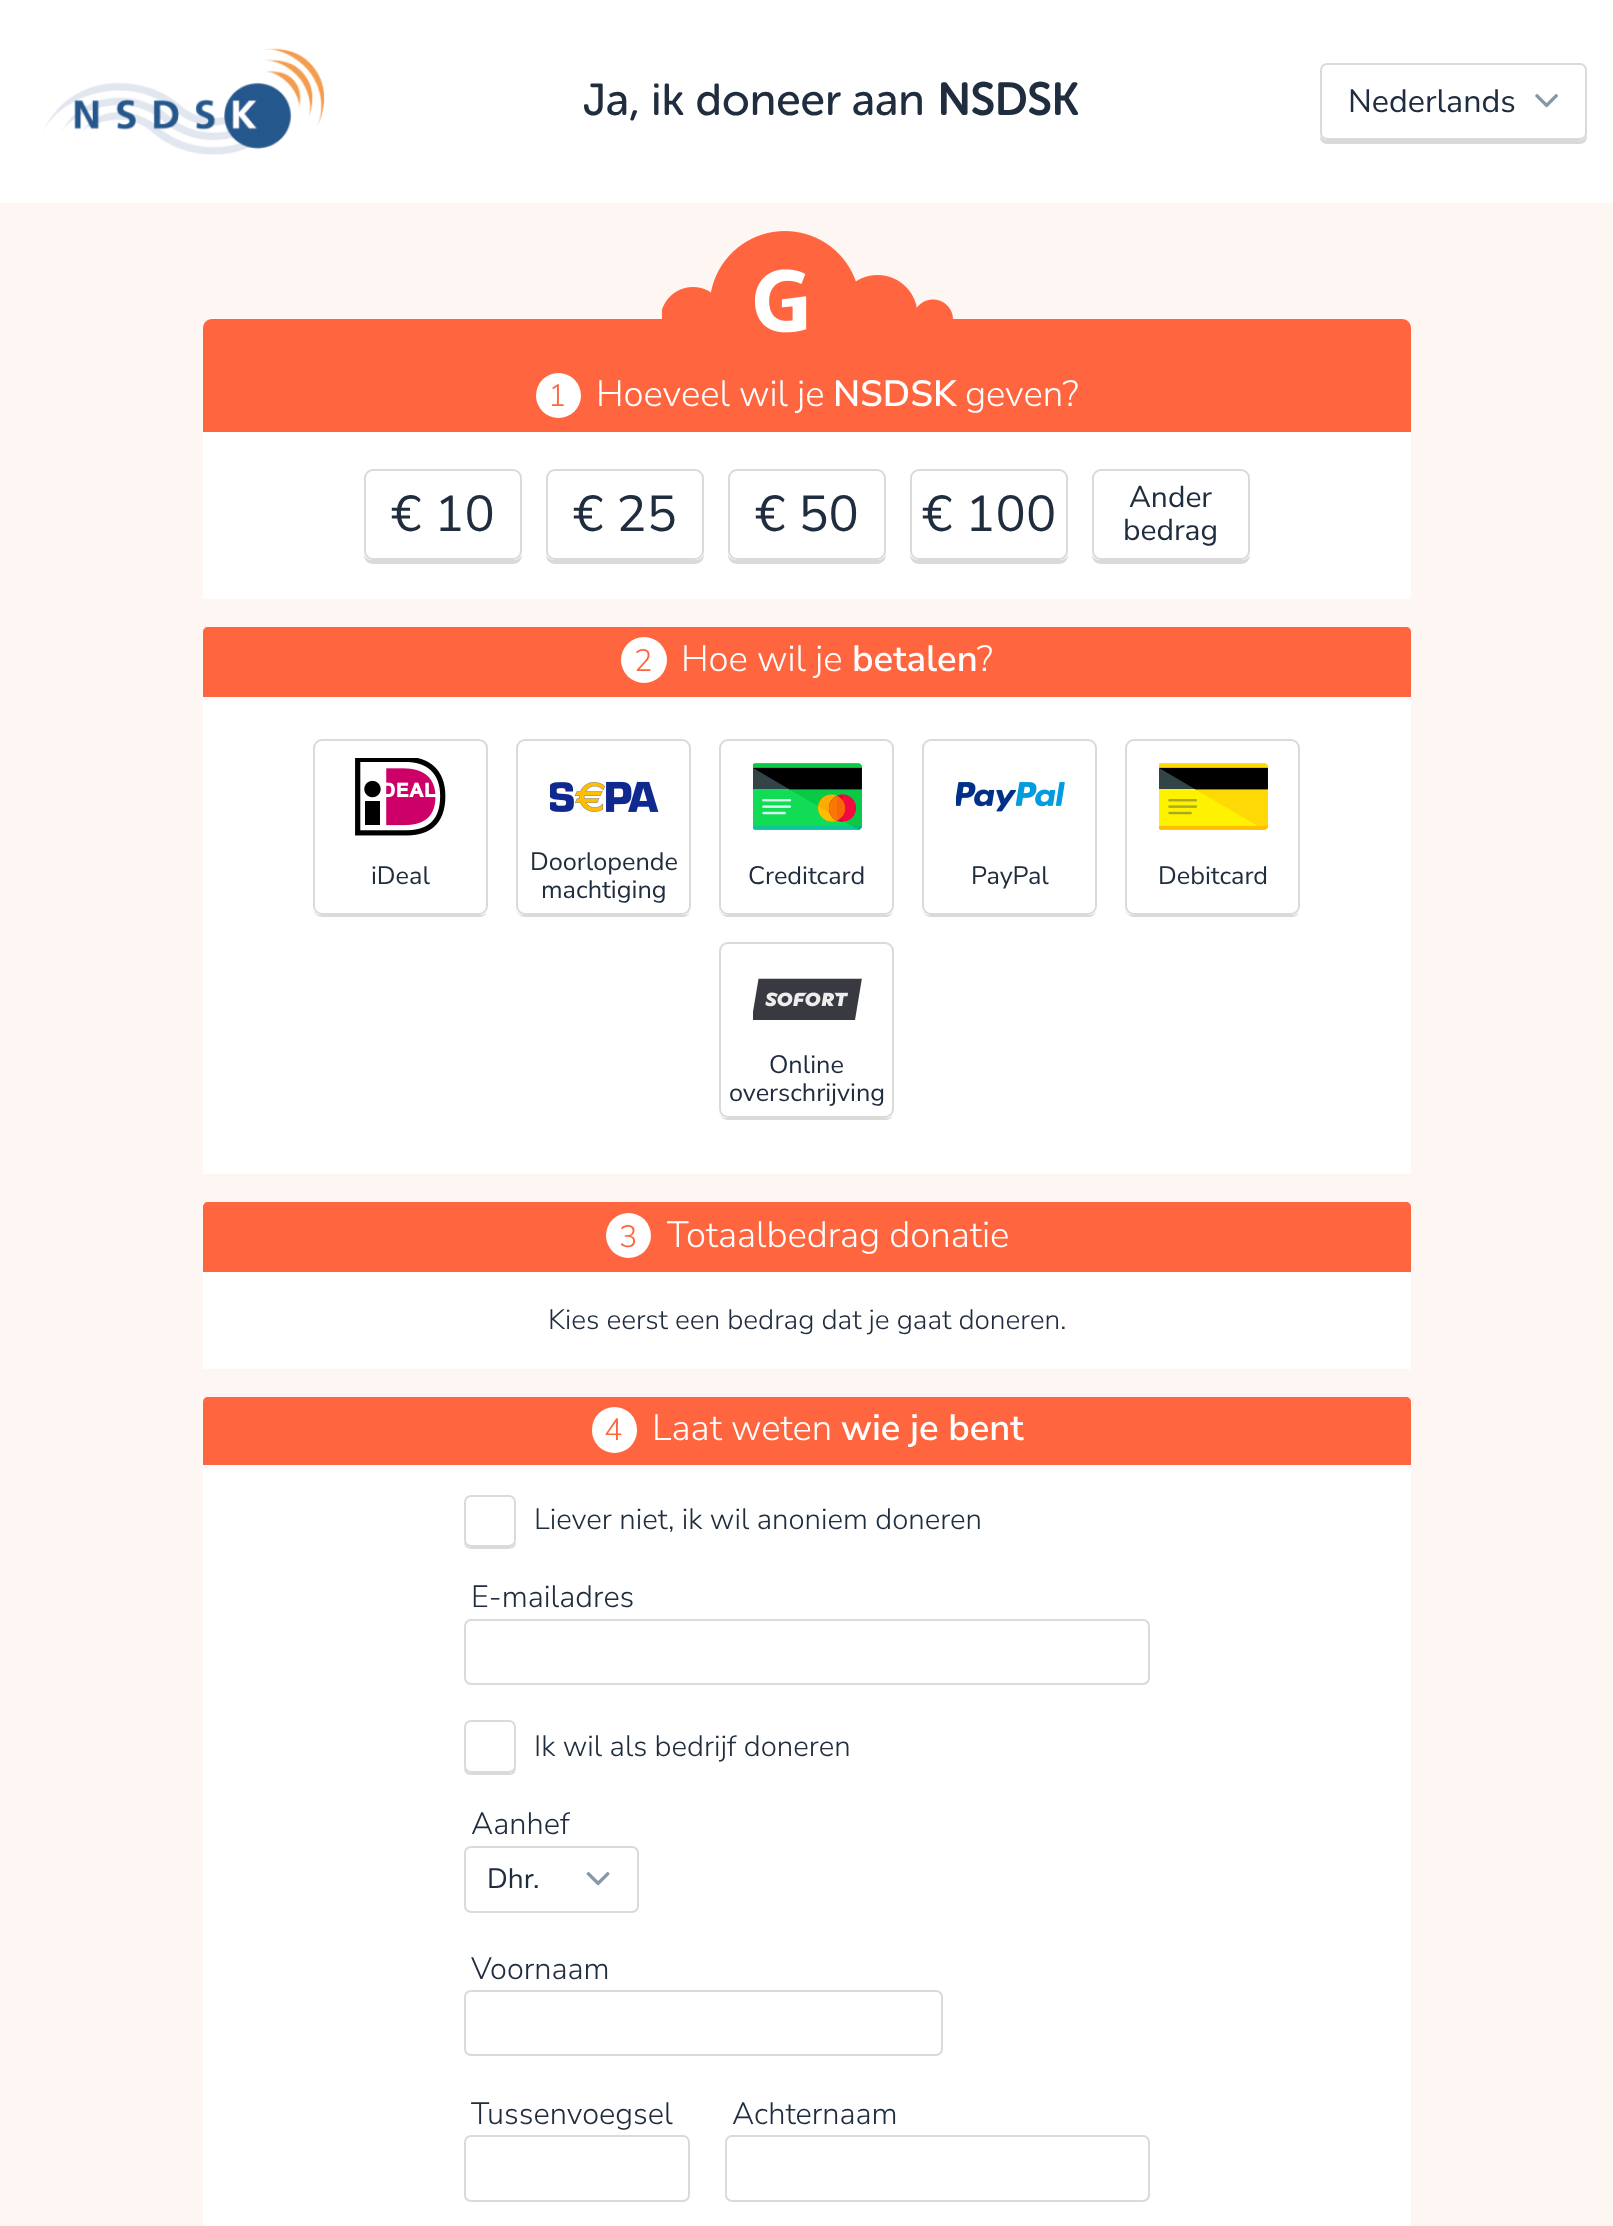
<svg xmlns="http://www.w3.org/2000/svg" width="1613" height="2226">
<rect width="100%" height="100%" fill="#fef6f3"/>
<rect width="1613" height="203" fill="#fff"/>
<image x="43" y="48" width="282" height="107" href="media/1.png"/>
<text x="583" y="115" style="font-family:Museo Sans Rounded;font-size:44.75px;fill:#202d3e">Ja, ik doneer aan</text>
<text x="937" y="115" style="font-family:Museo Sans Rounded;font-size:44.75px;font-weight:bold;fill:#202d3e">NSDSK</text>
<path d="M1320 136v1c0 4 3 7 7 7h253c4 0 7-3 7-7v-2c-1 3-4 5-7 5h-254c-2 0-5-2-6-4z" fill="#dadada"/>
<image x="1535" y="94" width="23" height="14" href="media/2.png"/>
<rect x="1321" y="64" width="265" height="75" rx="6" fill="none" stroke="#dadada" stroke-width="2"/>
<text x="1348" y="112" style="font-family:Nunito Sans;font-size:32.25px;fill:#202d3e">Nederlands</text>
<path d="M212 319h1190c5 0 9 4 9 9v34h-1208v-34c0-5 4-9 9-9z" fill="#ff663f"/>
<image x="662" y="231" width="291" height="102" href="media/3.png"/>
<rect x="203" y="432" width="1208" height="167" fill="#fff"/>
<rect x="203" y="362" width="1208" height="70" fill="#ff663f"/>
<circle cx="558.5" cy="395.5" r="22.5" fill="#fff"/>
<text x="548" y="406" style="font-family:Nunito Sans;font-size:30.75px;font-weight:300;fill:#ff663f">1</text>
<text x="596" y="406" style="font-family:Nunito Sans;font-size:36.5px;font-weight:300;fill:#fff">Hoeveel wil je</text>
<text x="833" y="406" style="font-family:Nunito Sans;font-size:36.5px;font-weight:600;fill:#fff">NSDSK</text>
<text x="965" y="406" style="font-family:Nunito Sans;font-size:36.5px;font-weight:300;fill:#fff">geven?</text>
<path d="M364 553v2c0 5 4 9 9 9h140c5 0 9-4 9-9v-73v-3v74c0 4-4 7-8 7h-142c-4 0-8-3-8-7z" fill="#dadada"/>
<rect x="365" y="470" width="156" height="89" rx="8" fill="#fff" stroke="#dadada" stroke-width="2"/>
<text x="391" y="531" style="font-family:Nunito Sans;font-size:50.5px;fill:#202d3e">€ 10</text>
<path d="M546 553v2c0 5 4 9 9 9h140c5 0 9-4 9-9v-73v-3v74c0 4-4 7-8 7h-142c-4 0-8-3-8-7z" fill="#dadada"/>
<rect x="547" y="470" width="156" height="89" rx="8" fill="#fff" stroke="#dadada" stroke-width="2"/>
<text x="573" y="531" style="font-family:Nunito Sans;font-size:50.5px;fill:#202d3e">€ 25</text>
<path d="M728 553v2c0 5 4 9 9 9h140c5 0 9-4 9-9v-73v-3v74c0 4-4 7-8 7h-142c-4 0-8-3-8-7z" fill="#dadada"/>
<rect x="729" y="470" width="156" height="89" rx="8" fill="#fff" stroke="#dadada" stroke-width="2"/>
<text x="755" y="531" style="font-family:Nunito Sans;font-size:50.5px;fill:#202d3e">€ 50</text>
<path d="M910 553v2c0 5 4 9 9 9h140c5 0 9-4 9-9v-73v-3v74c0 4-4 7-8 7h-142c-4 0-8-3-8-7z" fill="#dadada"/>
<rect x="911" y="470" width="156" height="89" rx="8" fill="#fff" stroke="#dadada" stroke-width="2"/>
<text x="922" y="531" style="font-family:Nunito Sans;font-size:50.5px;fill:#202d3e">€ 100</text>
<path d="M1092 553v2c0 5 4 9 9 9h140c5 0 9-4 9-9v-73v-3v74c0 4-4 7-8 7h-142c-4 0-8-3-8-7z" fill="#dadada"/>
<rect x="1093" y="470" width="156" height="89" rx="8" fill="#fff" stroke="#dadada" stroke-width="2"/>
<text x="1129" y="507" style="font-family:Nunito Sans;font-size:30px;fill:#202d3e">Ander</text>
<text x="1123" y="540" style="font-family:Nunito Sans;font-size:30px;fill:#202d3e">bedrag</text>
<path d="M208 627h1198c3 0 5 2 5 5v542h-1208v-542c0-3 2-5 5-5z" fill="#fff"/>
<path d="M208 627h1198c3 0 5 2 5 5v65h-1208v-65c0-3 2-5 5-5z" fill="#ff663f"/>
<circle cx="644" cy="660" r="23" fill="#fff"/>
<text x="634" y="671" style="font-family:Nunito Sans;font-size:30.75px;font-weight:300;fill:#ff663f">2</text>
<text x="681" y="671" style="font-family:Nunito Sans;font-size:36.5px;font-weight:300;fill:#fff">Hoe wil je</text>
<text x="852" y="671" style="font-family:Nunito Sans;font-size:36.5px;font-weight:600;fill:#fff">betalen</text>
<text x="977" y="671" style="font-family:Nunito Sans;font-size:36.5px;font-weight:300;fill:#fff">?</text>
<path d="M313 910c1 4 5 7 9 7h157c4 0 7-2 8-5c-1 1-3 3-6 3h-161c-3 0-6-2-7-5z" fill="#dadada"/>
<rect x="314" y="740" width="173" height="174" rx="8" fill="none" stroke="#dadada" stroke-width="2"/>
<image x="355" y="758" width="91" height="78" href="media/4.png"/>
<text x="371" y="884" style="font-family:Nunito Sans;font-size:25.25px;fill:#202d3e">iDeal</text>
<path d="M516 910c1 4 5 7 9 7h157c4 0 7-2 8-5c-1 1-3 3-6 3h-161c-3 0-6-2-7-5z" fill="#dadada"/>
<rect x="517" y="740" width="173" height="174" rx="8" fill="none" stroke="#dadada" stroke-width="2"/>
<image x="550" y="781" width="109" height="31" href="media/5.png"/>
<text x="530" y="870" style="font-family:Nunito Sans;font-size:25.25px;fill:#202d3e">Doorlopende</text>
<text x="541" y="898" style="font-family:Nunito Sans;font-size:25.25px;fill:#202d3e">machtiging</text>
<path d="M719 910c1 4 5 7 9 7h157c4 0 7-2 8-5c-1 1-3 3-6 3h-161c-3 0-6-2-7-5z" fill="#dadada"/>
<rect x="720" y="740" width="173" height="174" rx="8" fill="none" stroke="#dadada" stroke-width="2"/>
<image x="753" y="763" width="109" height="67" href="media/6.png"/>
<text x="748" y="884" style="font-family:Nunito Sans;font-size:25.25px;fill:#202d3e">Creditcard</text>
<path d="M922 910c1 4 5 7 9 7h157c4 0 7-2 8-5c-1 1-3 3-6 3h-161c-3 0-6-2-7-5z" fill="#dadada"/>
<rect x="923" y="740" width="173" height="174" rx="8" fill="none" stroke="#dadada" stroke-width="2"/>
<image x="956" y="782" width="109" height="30" href="media/7.png"/>
<text x="971" y="884" style="font-family:Nunito Sans;font-size:25.25px;fill:#202d3e">PayPal</text>
<path d="M1125 910c1 4 5 7 9 7h157c4 0 7-2 8-5c-1 1-3 3-6 3h-161c-3 0-6-2-7-5z" fill="#dadada"/>
<rect x="1126" y="740" width="173" height="174" rx="8" fill="none" stroke="#dadada" stroke-width="2"/>
<image x="1159" y="763" width="109" height="67" href="media/8.png"/>
<text x="1158" y="884" style="font-family:Nunito Sans;font-size:25.25px;fill:#202d3e">Debitcard</text>
<path d="M719 1113c1 4 5 7 9 7h157c4 0 7-2 8-5c-1 1-3 3-6 3h-161c-3 0-6-2-7-5z" fill="#dadada"/>
<rect x="720" y="943" width="173" height="174" rx="8" fill="none" stroke="#dadada" stroke-width="2"/>
<image x="753" y="978" width="109" height="42" href="media/9.png"/>
<text x="769" y="1073" style="font-family:Nunito Sans;font-size:25.25px;fill:#202d3e">Online</text>
<text x="729" y="1101" style="font-family:Nunito Sans;font-size:25.25px;fill:#202d3e">overschrijving</text>
<path d="M208 1202h1198c3 0 5 2 5 5v162h-1208v-162c0-3 2-5 5-5z" fill="#fff"/>
<path d="M208 1202h1198c3 0 5 2 5 5v65h-1208v-65c0-3 2-5 5-5z" fill="#ff663f"/>
<circle cx="628.5" cy="1235.5" r="22.5" fill="#fff"/>
<text x="619" y="1247" style="font-family:Nunito Sans;font-size:30.75px;font-weight:300;fill:#ff663f">3</text>
<text x="667" y="1247" style="font-family:Nunito Sans;font-size:36.5px;font-weight:300;fill:#fff">Totaalbedrag donatie</text>
<text x="548" y="1329" style="font-family:Nunito Sans;font-size:28px;font-weight:300;fill:#202d3e">Kies eerst een bedrag dat je gaat doneren.</text>
<path d="M208 1397h1198c3 0 5 2 5 5v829h-1208v-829c0-3 2-5 5-5z" fill="#fff"/>
<path d="M208 1397h1198c3 0 5 2 5 5v63h-1208v-63c0-3 2-5 5-5z" fill="#ff663f"/>
<rect x="592" y="1407" width="45" height="46" rx="22.5" fill="#fff"/>
<text x="604" y="1440" style="font-family:Nunito Sans;font-size:30.75px;font-weight:300;fill:#ff663f">4</text>
<text x="652" y="1440" style="font-family:Nunito Sans;font-size:36.5px;font-weight:300;fill:#fff">Laat weten</text>
<text x="841" y="1440" style="font-family:Nunito Sans;font-size:36.5px;font-weight:600;fill:#fff">wie je bent</text>
<path d="M464 1542c0 8 8 7 13 7h26c5 0 13 1 13-7c-1 3-4 5-7 5h-38c-3 0-6-2-7-5z" fill="#dadada"/>
<rect x="465" y="1496" width="50" height="50" rx="6" fill="#fff" stroke="#dadada" stroke-width="2"/>
<text x="534" y="1529" style="font-family:Nunito Sans;font-size:29.4px;font-weight:300;fill:#202d3e">Liever niet, ik wil anoniem doneren</text>
<text x="471" y="1607" style="font-family:Nunito Sans;font-size:30.75px;font-weight:300;fill:#202d3e">E-mailadres</text>
<rect x="465" y="1620" width="684" height="64" rx="6" fill="none" stroke="#dadada" stroke-width="2"/>
<path d="M464 1768c0 8 7 7 13 7h26c6 0 13 1 13-7c-1 3-4 5-7 5h-38c-3 0-6-2-7-5z" fill="#dadada"/>
<rect x="465" y="1721" width="50" height="51" rx="6" fill="#fff" stroke="#dadada" stroke-width="2"/>
<text x="534" y="1756" style="font-family:Nunito Sans;font-size:29.4px;font-weight:300;fill:#202d3e">Ik wil als bedrijf doneren</text>
<text x="471" y="1834" style="font-family:Nunito Sans;font-size:30.75px;font-weight:300;fill:#202d3e">Aanhef</text>
<image x="586" y="1872" width="24" height="14" href="media/10.png"/>
<rect x="465" y="1847" width="173" height="65" rx="6" fill="none" stroke="#dadada" stroke-width="2"/>
<text x="487" y="1888" style="font-family:Nunito Sans;font-size:28px;fill:#202d3e">Dhr.</text>
<text x="471" y="1979" style="font-family:Nunito Sans;font-size:30.75px;font-weight:300;fill:#202d3e">Voornaam</text>
<rect x="465" y="1991" width="477" height="64" rx="6" fill="none" stroke="#dadada" stroke-width="2"/>
<text x="471" y="2124" style="font-family:Nunito Sans;font-size:30.75px;font-weight:300;fill:#202d3e">Tussenvoegsel</text>
<rect x="465" y="2136" width="224" height="65" rx="6" fill="none" stroke="#dadada" stroke-width="2"/>
<text x="732" y="2124" style="font-family:Nunito Sans;font-size:30.75px;font-weight:300;fill:#202d3e">Achternaam</text>
<rect x="726" y="2136" width="423" height="65" rx="6" fill="none" stroke="#dadada" stroke-width="2"/>
</svg>
